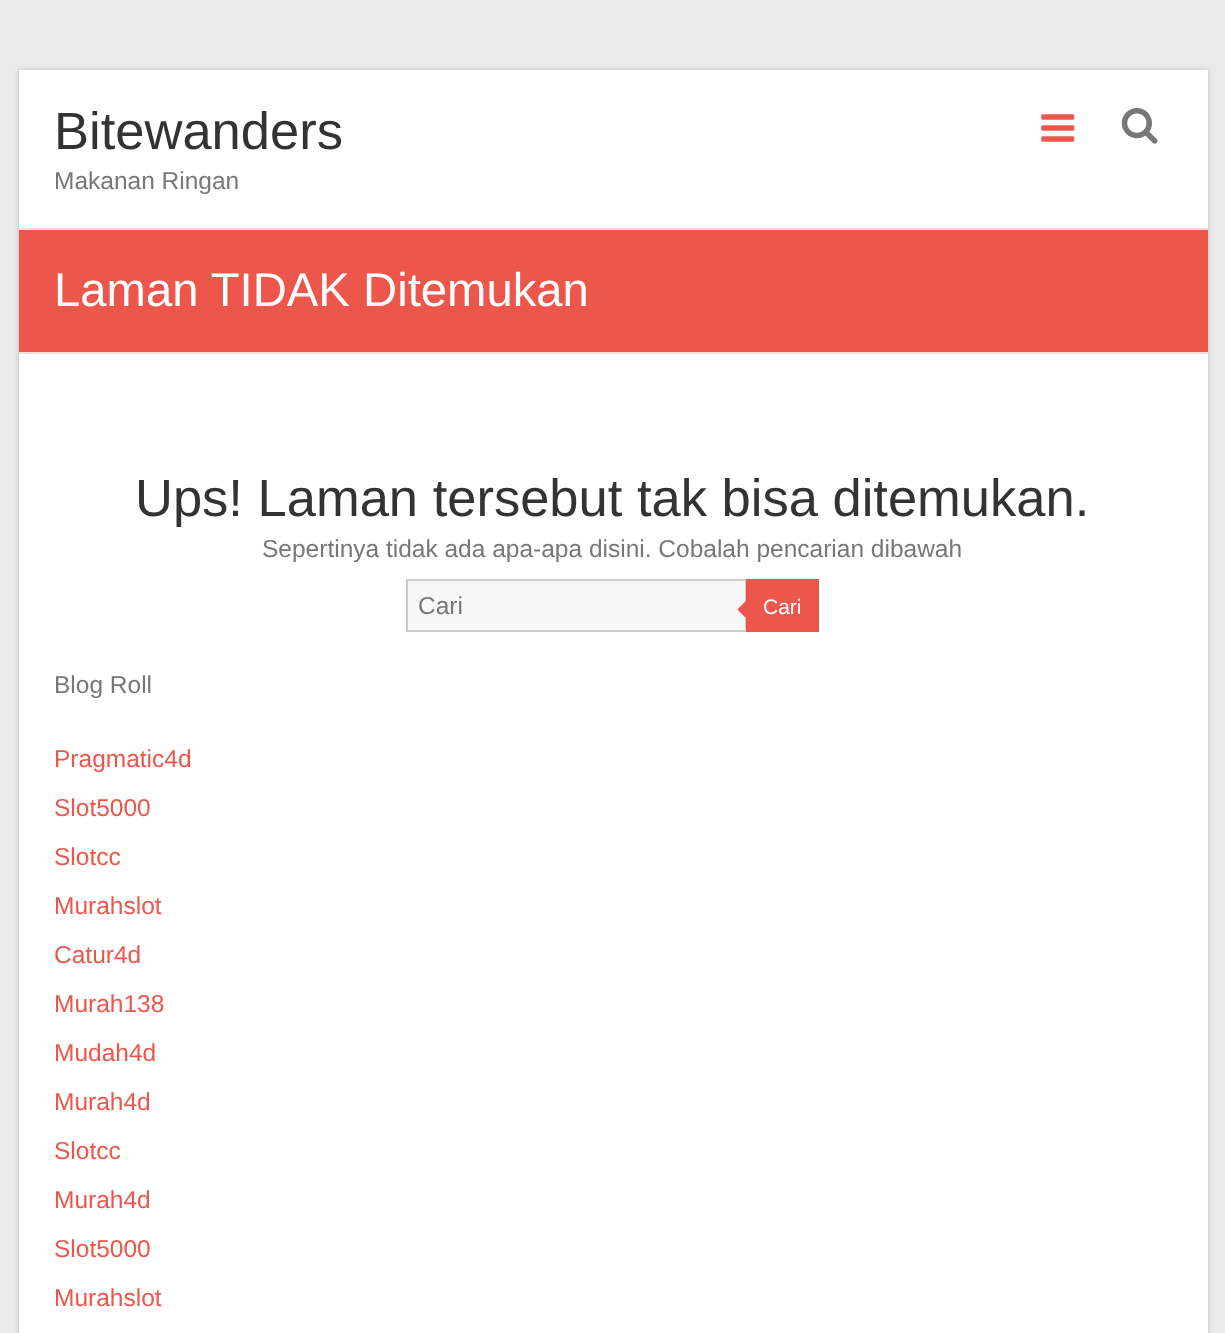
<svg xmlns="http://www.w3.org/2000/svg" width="1225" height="1333">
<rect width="100%" height="100%" fill="#eaeaea"/>
<rect x="19" y="70" width="1189" height="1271" fill="#00000033" filter="blur(2.5px)"/>
<rect x="19" y="70" width="1189" height="1263" fill="#fff"/>
<text x="54" y="149" style="font-family:Liberation Sans;font-size:52.5px;fill:#333">Bitewanders</text>
<text x="54" y="189" style="font-family:Liberation Sans;font-size:24.5px;fill:#777">Makanan Ringan</text>
<image x="1041" y="114" width="34" height="28" href="media/1.png"/>
<image x="1121" y="108" width="37" height="36" href="media/2.png"/>
<rect x="19" y="230" width="1189" height="122" fill="#ed564b"/>
<rect x="19" y="228" width="1189" height="2" fill="#fbdddb"/>
<rect x="19" y="352" width="1189" height="2" fill="#fbdddb"/>
<text x="54" y="306" style="font-family:Liberation Sans;font-size:47.25px;fill:#fff">Laman TIDAK Ditemukan</text>
<text x="135" y="516" style="font-family:Liberation Sans;font-size:52.5px;fill:#333">Ups! Laman tersebut tak bisa ditemukan.</text>
<text x="262" y="557" style="font-family:Liberation Sans;font-size:24.5px;fill:#777">Sepertinya tidak ada apa-apa disini. Cobalah pencarian dibawah</text>
<rect x="407" y="580" width="339" height="51" fill="#f8f8f8" stroke="#ccc" stroke-width="2"/>
<text x="418" y="614" style="font-family:Liberation Sans;font-size:24.5px;fill:#777">Cari</text>
<rect x="746" y="579" width="73" height="53" fill="#ed564b"/>
<image x="737" y="601" width="9" height="17" href="media/3.png"/>
<text x="763" y="614" style="font-family:Liberation Sans;font-size:21px;fill:#fff">Cari</text>
<text x="54" y="693" style="font-family:Liberation Sans;font-size:24.5px;fill:#777">Blog Roll</text>
<text x="54" y="767" style="font-family:Liberation Sans;font-size:24.5px;fill:#ed564b">Pragmatic4d</text>
<text x="54" y="816" style="font-family:Liberation Sans;font-size:24.5px;fill:#ed564b">Slot5000</text>
<text x="54" y="865" style="font-family:Liberation Sans;font-size:24.5px;fill:#ed564b">Slotcc</text>
<text x="54" y="914" style="font-family:Liberation Sans;font-size:24.5px;fill:#ed564b">Murahslot</text>
<text x="54" y="963" style="font-family:Liberation Sans;font-size:24.5px;fill:#ed564b">Catur4d</text>
<text x="54" y="1012" style="font-family:Liberation Sans;font-size:24.5px;fill:#ed564b">Murah138</text>
<text x="54" y="1061" style="font-family:Liberation Sans;font-size:24.5px;fill:#ed564b">Mudah4d</text>
<text x="54" y="1110" style="font-family:Liberation Sans;font-size:24.5px;fill:#ed564b">Murah4d</text>
<text x="54" y="1159" style="font-family:Liberation Sans;font-size:24.5px;fill:#ed564b">Slotcc</text>
<text x="54" y="1208" style="font-family:Liberation Sans;font-size:24.5px;fill:#ed564b">Murah4d</text>
<text x="54" y="1257" style="font-family:Liberation Sans;font-size:24.5px;fill:#ed564b">Slot5000</text>
<text x="54" y="1306" style="font-family:Liberation Sans;font-size:24.5px;fill:#ed564b">Murahslot</text>
</svg>
